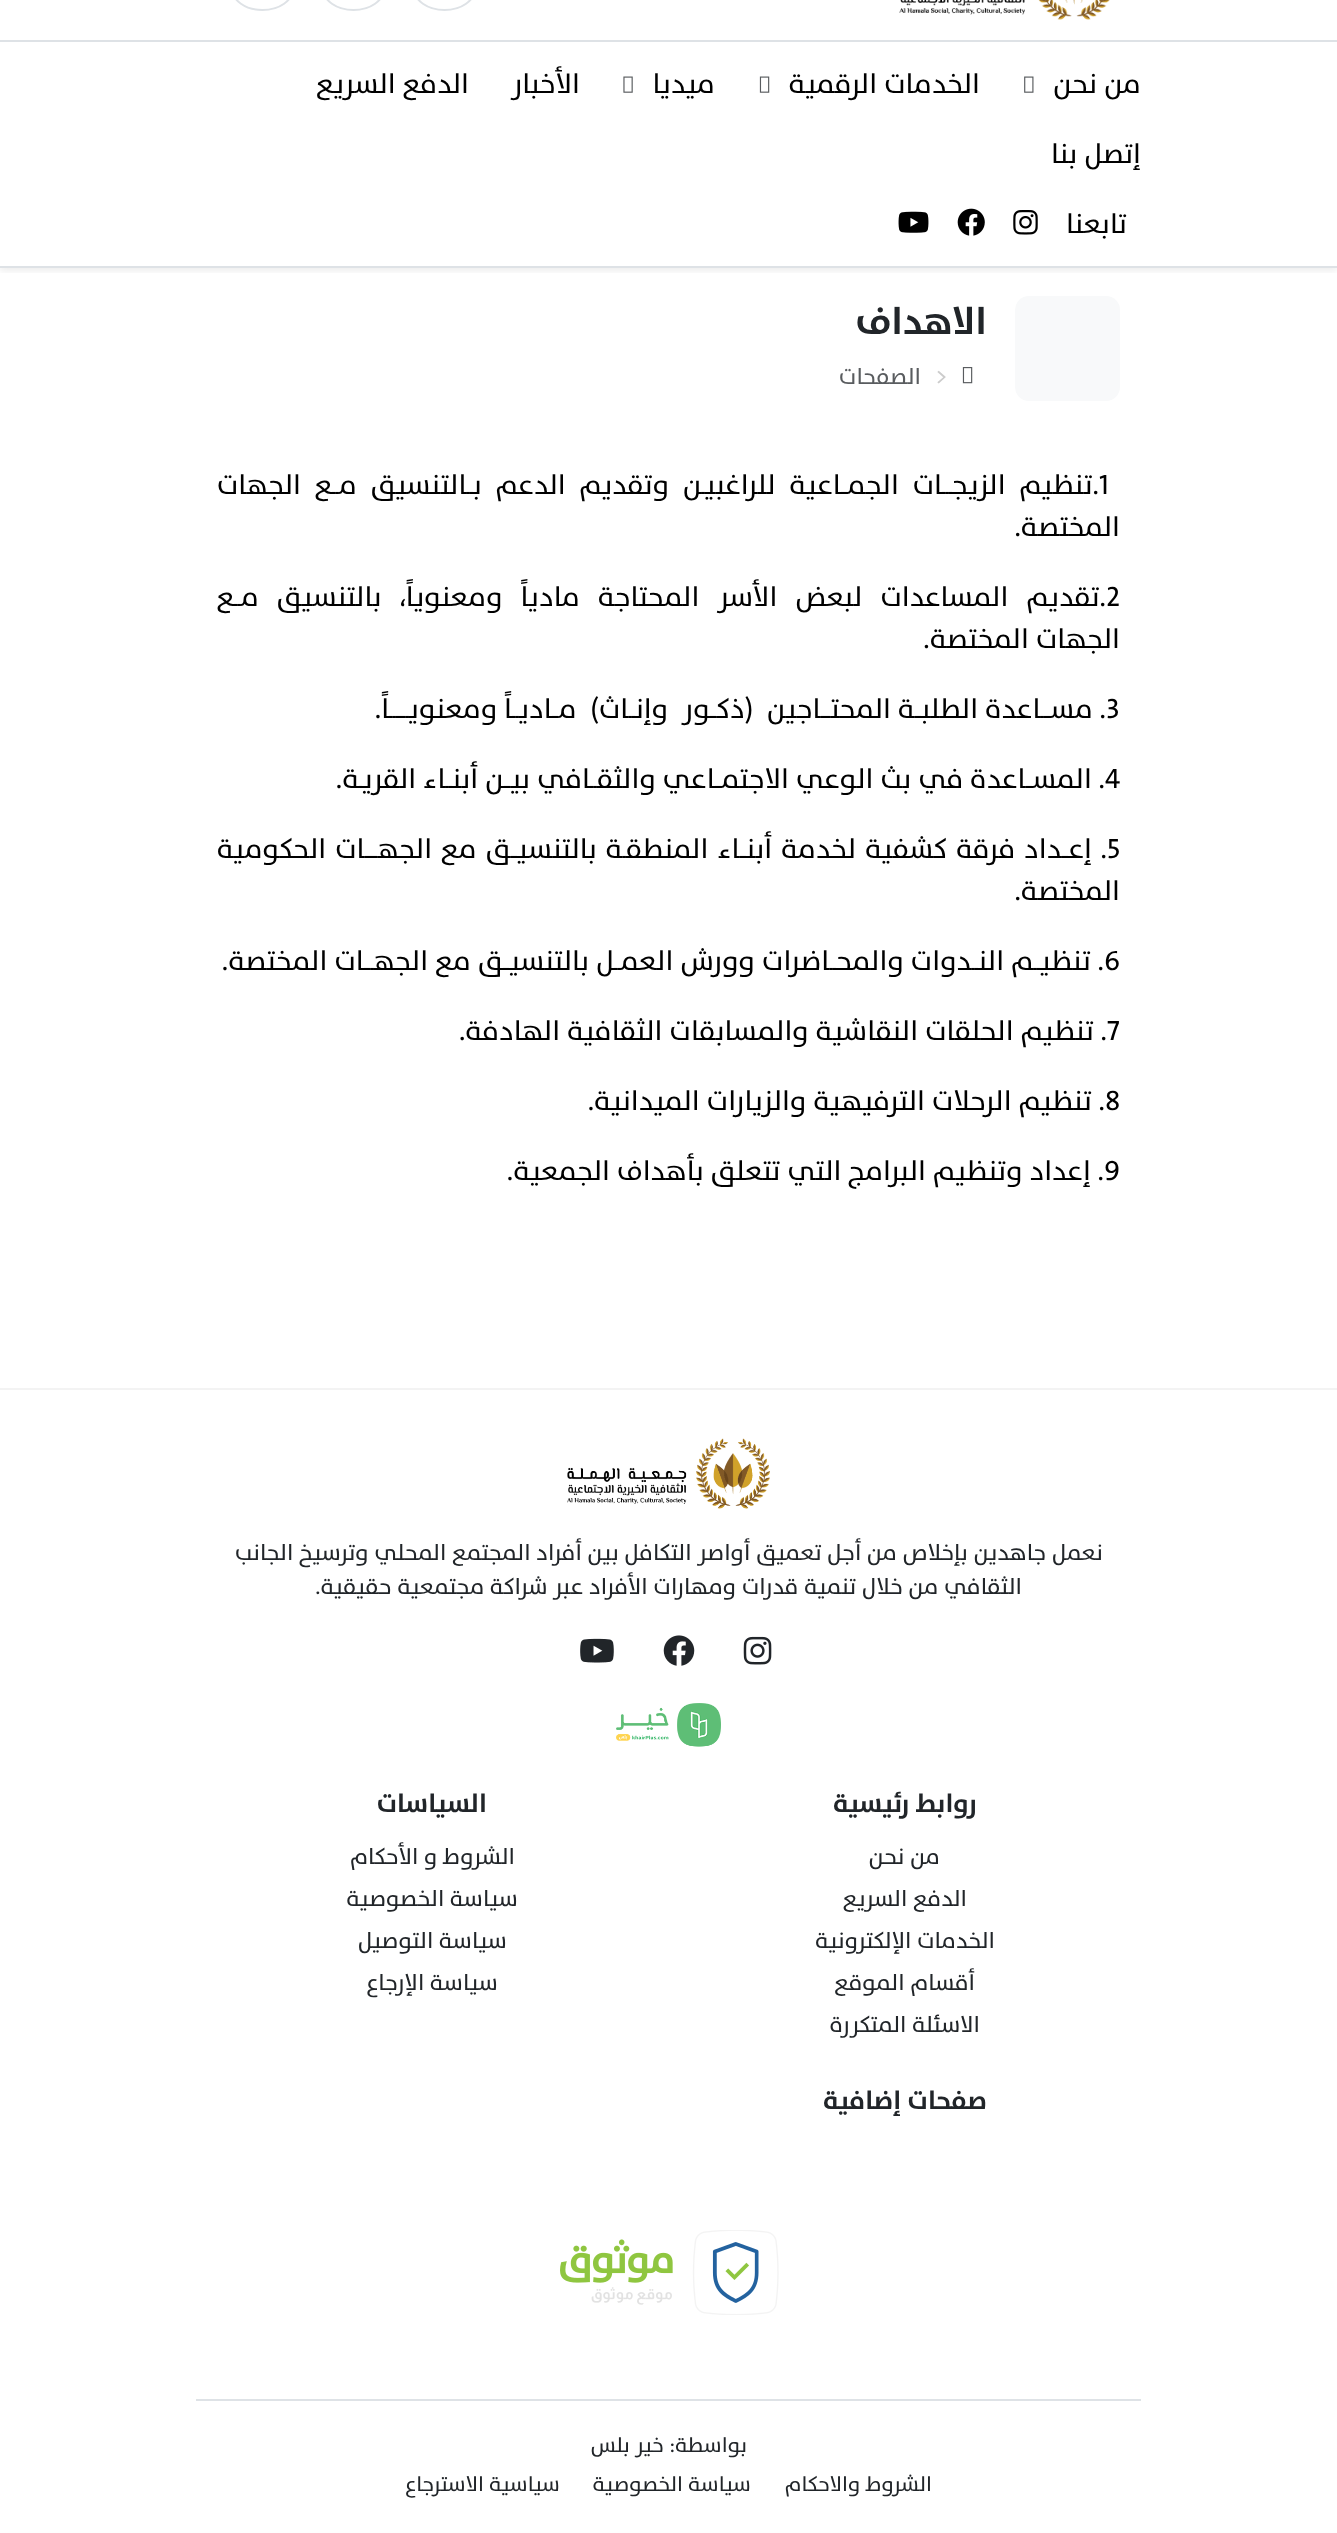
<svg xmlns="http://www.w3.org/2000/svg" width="1337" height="2533">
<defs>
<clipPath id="clip1"><rect x="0" y="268" width="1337" height="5"/></clipPath>
</defs>
<rect width="100%" height="100%" fill="#fff"/>
<g clip-path="url(#clip1)">
<rect y="-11" width="1337" height="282" fill="#00000012" filter="blur(3.5px)"/>
</g>
<rect y="40" width="1337" height="2" fill="#dee2e6"/>
<image x="899" y="0" width="211" height="20" href="media/1.png"/>
<rect x="414" y="-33" width="61" height="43" rx="30.5" fill="none" stroke="#dee2e6" stroke-width="2"/>
<rect x="323" y="-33" width="61" height="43" rx="30.5" fill="none" stroke="#dee2e6" stroke-width="2"/>
<rect x="232" y="-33" width="61" height="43" rx="30.5" fill="none" stroke="#dee2e6" stroke-width="2"/>
<rect y="266" width="1337" height="2" fill="#dee2e6"/>
<text x="1141" y="93" style="font-family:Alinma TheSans;font-size:28px;direction:rtl;fill:#000">من نحن</text>
<image x="1024" y="76" width="10" height="17" href="media/2.png"/>
<text x="980" y="93" style="font-family:Alinma TheSans;font-size:28px;direction:rtl;fill:#000">الخدمات الرقمية</text>
<image x="759" y="76" width="11" height="17" href="media/3.png"/>
<text x="715" y="93" style="font-family:Alinma TheSans;font-size:28px;direction:rtl;fill:#000">ميديا</text>
<image x="623" y="76" width="10" height="17" href="media/4.png"/>
<text x="580" y="93" style="font-family:Alinma TheSans;font-size:28px;direction:rtl;fill:#000">الأخبار</text>
<text x="469" y="93" style="font-family:Alinma TheSans;font-size:28px;direction:rtl;fill:#000">الدفع السريع</text>
<text x="1141" y="163" style="font-family:Alinma TheSans;font-size:28px;direction:rtl;fill:#000">إتصل بنا</text>
<text x="1127" y="233" style="font-family:Alinma TheSans;font-size:28px;direction:rtl;fill:#000">تابعنا</text>
<image x="1013" y="210" width="25" height="25" href="media/5.png"/>
<image x="957" y="208" width="28" height="28" href="media/6.png"/>
<image x="898" y="211" width="31" height="22" href="media/7.png"/>
<rect x="1015" y="296" width="105" height="105" rx="14" fill="#f8f9fa"/>
<text x="987" y="334" style="font-family:Alinma TheSans;font-size:38.5px;font-weight:bold;direction:rtl;fill:#212529">الاهداف</text>
<image x="962" y="367" width="11" height="17" href="media/8.png"/>
<text x="935" y="384" style="font-family:Alinma TheSans;font-size:22.75px;fill:#ccc">&gt;</text>
<text x="921" y="384" style="font-family:Alinma TheSans;font-size:22.75px;direction:rtl;fill:#595c5f">الصفحات</text>
<text x="1099" y="494" style="font-family:Alinma TheSans;font-size:28px;fill:#000">1</text>
<text x="1099" y="494" word-spacing="6.75" style="font-family:Alinma TheSans;font-size:28px;direction:rtl;fill:#000">.تنظيم الزيجـــات الجمــاعية للراغبيـن وتقديم الدعم بــالتنسيق مــع الجهات</text>
<text x="1120" y="536" style="font-family:Alinma TheSans;font-size:28px;direction:rtl;fill:#000">المختصة.</text>
<text x="1106" y="606" style="font-family:Alinma TheSans;font-size:28px;fill:#000">2</text>
<text x="1106" y="606" word-spacing="11" style="font-family:Alinma TheSans;font-size:28px;direction:rtl;fill:#000">.تقديم المساعدات لبعض الأسر المحتاجة مادياً ومعنوياً، بالتنسيق مــع</text>
<text x="1120" y="648" style="font-family:Alinma TheSans;font-size:28px;direction:rtl;fill:#000">الجهات المختصة.</text>
<text x="1106" y="718" style="font-family:Alinma TheSans;font-size:28px;direction:rtl;fill:#000" xml:space="preserve">. مســـاعدة الطلبــة المحتـــاجين  (ذكــور  وإنــاث)  مــاديــاً ومعنويــــــاً.</text>
<text x="1106" y="718" style="font-family:Alinma TheSans;font-size:28px;fill:#000">3</text>
<text x="1105" y="788" style="font-family:Alinma TheSans;font-size:28px;fill:#000">4</text>
<text x="1105" y="788" style="font-family:Alinma TheSans;font-size:28px;direction:rtl;fill:#000">. المســاعدة في بث الوعي الاجتمــاعي والثقــافي بيــن أبنــاء القريـة.</text>
<text x="1107" y="858" style="font-family:Alinma TheSans;font-size:28px;fill:#000">5</text>
<text x="1107" y="858" word-spacing="1.9" style="font-family:Alinma TheSans;font-size:28px;direction:rtl;fill:#000">. إعــداد فرقة كشفية لخدمة أبنــاء المنطقـة بالتنسيــق مع الجهــــات الحكومية</text>
<text x="1120" y="900" style="font-family:Alinma TheSans;font-size:28px;direction:rtl;fill:#000">المختصة.</text>
<text x="1104" y="970" style="font-family:Alinma TheSans;font-size:28px;fill:#000">6</text>
<text x="1104" y="970" style="font-family:Alinma TheSans;font-size:28px;direction:rtl;fill:#000">. تنظيــم النــدوات والمحــاضرات وورش العمــل بالتنسيــق مع الجهـــات المختصة.</text>
<text x="1107" y="1040" style="font-family:Alinma TheSans;font-size:28px;fill:#000">7</text>
<text x="1107" y="1040" style="font-family:Alinma TheSans;font-size:28px;direction:rtl;fill:#000">. تنظيم الحلقات النقاشية والمسابقات الثقافية الهادفة.</text>
<text x="1105" y="1110" style="font-family:Alinma TheSans;font-size:28px;fill:#000">8</text>
<text x="1105" y="1110" style="font-family:Alinma TheSans;font-size:28px;direction:rtl;fill:#000">. تنظيم الرحلات الترفيهية والزيارات الميدانية.</text>
<text x="1104" y="1180" style="font-family:Alinma TheSans;font-size:28px;fill:#000">9</text>
<text x="1104" y="1180" style="font-family:Alinma TheSans;font-size:28px;direction:rtl;fill:#000">. إعداد وتنظيم البرامج التي تتعلق بأهداف الجمعية.</text>
<rect y="1388" width="1337" height="2" fill="#f3f3f3"/>
<image x="567" y="1438" width="203" height="71" href="media/9.png"/>
<text x="1103" y="1560" style="font-family:Alinma TheSans;font-size:22.75px;direction:rtl;fill:#212529">نعمل جاهدين بإخلاص من أجل تعميق أواصر التكافل بين أفراد المجتمع المحلي وترسيخ الجانب</text>
<text x="1022" y="1594" style="font-family:Alinma TheSans;font-size:22.75px;direction:rtl;fill:#212529">الثقافي من خلال تنمية قدرات ومهارات الأفراد عبر شراكة مجتمعية حقيقية.</text>
<image x="743" y="1636" width="29" height="29" href="media/10.png"/>
<image x="663" y="1635" width="32" height="31" href="media/11.png"/>
<image x="580" y="1638" width="34" height="25" href="media/12.png"/>
<image x="616" y="1703" width="105" height="44" href="media/13.png"/>
<text x="977" y="1812" style="font-family:Alinma TheSans;font-size:26.25px;font-weight:bold;direction:rtl;fill:#212529">روابط رئيسية</text>
<text x="940" y="1864" style="font-family:Alinma TheSans;font-size:22.75px;direction:rtl;fill:#212529">من نحن</text>
<text x="967" y="1906" style="font-family:Alinma TheSans;font-size:22.75px;direction:rtl;fill:#212529">الدفع السريع</text>
<text x="995" y="1948" style="font-family:Alinma TheSans;font-size:22.75px;direction:rtl;fill:#212529">الخدمات الإلكترونية</text>
<text x="975" y="1990" style="font-family:Alinma TheSans;font-size:22.75px;direction:rtl;fill:#212529">أقسام الموقع</text>
<text x="980" y="2032" style="font-family:Alinma TheSans;font-size:22.75px;direction:rtl;fill:#212529">الاسئلة المتكررة</text>
<text x="487" y="1812" style="font-family:Alinma TheSans;font-size:26.25px;font-weight:bold;direction:rtl;fill:#212529">السياسات</text>
<text x="515" y="1864" style="font-family:Alinma TheSans;font-size:22.75px;direction:rtl;fill:#212529">الشروط و الأحكام</text>
<text x="518" y="1906" style="font-family:Alinma TheSans;font-size:22.75px;direction:rtl;fill:#212529">سياسة الخصوصية</text>
<text x="507" y="1948" style="font-family:Alinma TheSans;font-size:22.75px;direction:rtl;fill:#212529">سياسة التوصيل</text>
<text x="498" y="1990" style="font-family:Alinma TheSans;font-size:22.75px;direction:rtl;fill:#212529">سياسة الإرجاع</text>
<text x="987" y="2109" style="font-family:Alinma TheSans;font-size:26.25px;font-weight:bold;direction:rtl;fill:#212529">صفحات إضافية</text>
<image x="560" y="2230" width="219" height="85" href="media/14.png"/>
<rect x="196" y="2399" width="945" height="2" fill="#dee2e6"/>
<text x="747" y="2452" style="font-family:Alinma TheSans;font-size:21px;direction:rtl;fill:#212529">بواسطة:</text>
<text x="664" y="2452" style="font-family:Alinma TheSans;font-size:21px;direction:rtl;fill:#212529">خير بلس</text>
<text x="932" y="2491" style="font-family:Alinma TheSans;font-size:21px;direction:rtl;fill:#212529">الشروط والاحكام</text>
<text x="751" y="2491" style="font-family:Alinma TheSans;font-size:21px;direction:rtl;fill:#212529">سياسة الخصوصية</text>
<text x="560" y="2491" style="font-family:Alinma TheSans;font-size:21px;direction:rtl;fill:#212529">سياسية الاسترجاع</text>
</svg>
